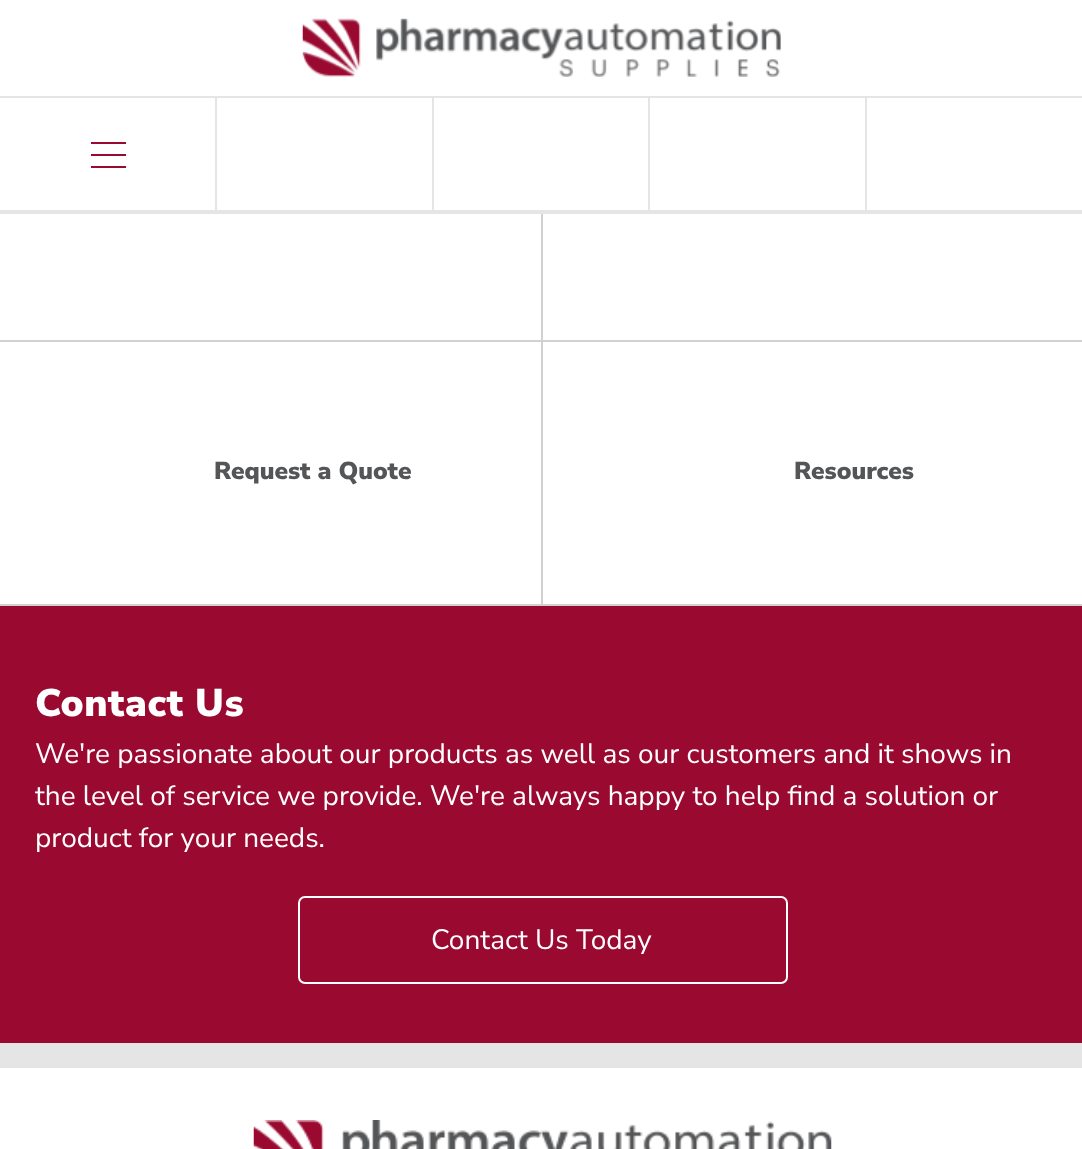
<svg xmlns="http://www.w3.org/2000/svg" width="1082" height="1149">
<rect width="100%" height="100%" fill="#fff"/>
<rect y="210" width="1082" height="4" fill="#e5e5e5"/>
<image x="302" y="18" width="479" height="59" href="media/1.png"/>
<rect y="96" width="1082" height="2" fill="#e5e5e5"/>
<rect x="215" y="98" width="2" height="112" fill="#e5e5e5"/>
<rect x="91" y="154" width="35" height="2" fill="#9a0930"/>
<rect x="91" y="142" width="35" height="2" fill="#9a0930"/>
<rect x="91" y="166" width="35" height="2" fill="#9a0930"/>
<rect x="432" y="98" width="2" height="112" fill="#e5e5e5"/>
<rect x="648" y="98" width="2" height="112" fill="#e5e5e5"/>
<rect x="865" y="98" width="2" height="112" fill="#e5e5e5"/>
<rect y="604" width="1082" height="2" fill="#d1d1d1"/>
<rect x="541" y="214" width="2" height="126" fill="#d1d1d1"/>
<rect y="340" width="1082" height="2" fill="#d1d1d1"/>
<rect x="541" y="340" width="2" height="264" fill="#d1d1d1"/>
<text x="214" y="479" style="font-family:Nunito Sans;font-size:24.5px;font-weight:900;fill:#545557">Request a Quote</text>
<text x="794" y="479" style="font-family:Nunito Sans;font-size:24.5px;font-weight:900;fill:#545557">Resources</text>
<rect y="606" width="1082" height="437" fill="#9a0930"/>
<text x="35" y="716" style="font-family:Nunito Sans;font-size:38.5px;font-weight:900;letter-spacing:0.5px;fill:#fff">Contact Us</text>
<text x="35" y="763" style="font-family:Nunito Sans;font-size:28px;fill:#fff">We're passionate about our products as well as our customers and it shows in</text>
<text x="35" y="805" style="font-family:Nunito Sans;font-size:28px;fill:#fff">the level of service we provide. We're always happy to help find a solution or</text>
<text x="35" y="847" style="font-family:Nunito Sans;font-size:28px;fill:#fff">product for your needs.</text>
<rect x="299" y="897" width="488" height="86" rx="6" fill="none" stroke="#fff" stroke-width="2"/>
<text x="431" y="949" style="font-family:Nunito Sans;font-size:28px;fill:#fff">Contact Us Today</text>
<rect y="1043" width="1082" height="25" fill="#e5e5e5"/>
<image x="253" y="1120" width="579" height="29" href="media/2.png"/>
</svg>
